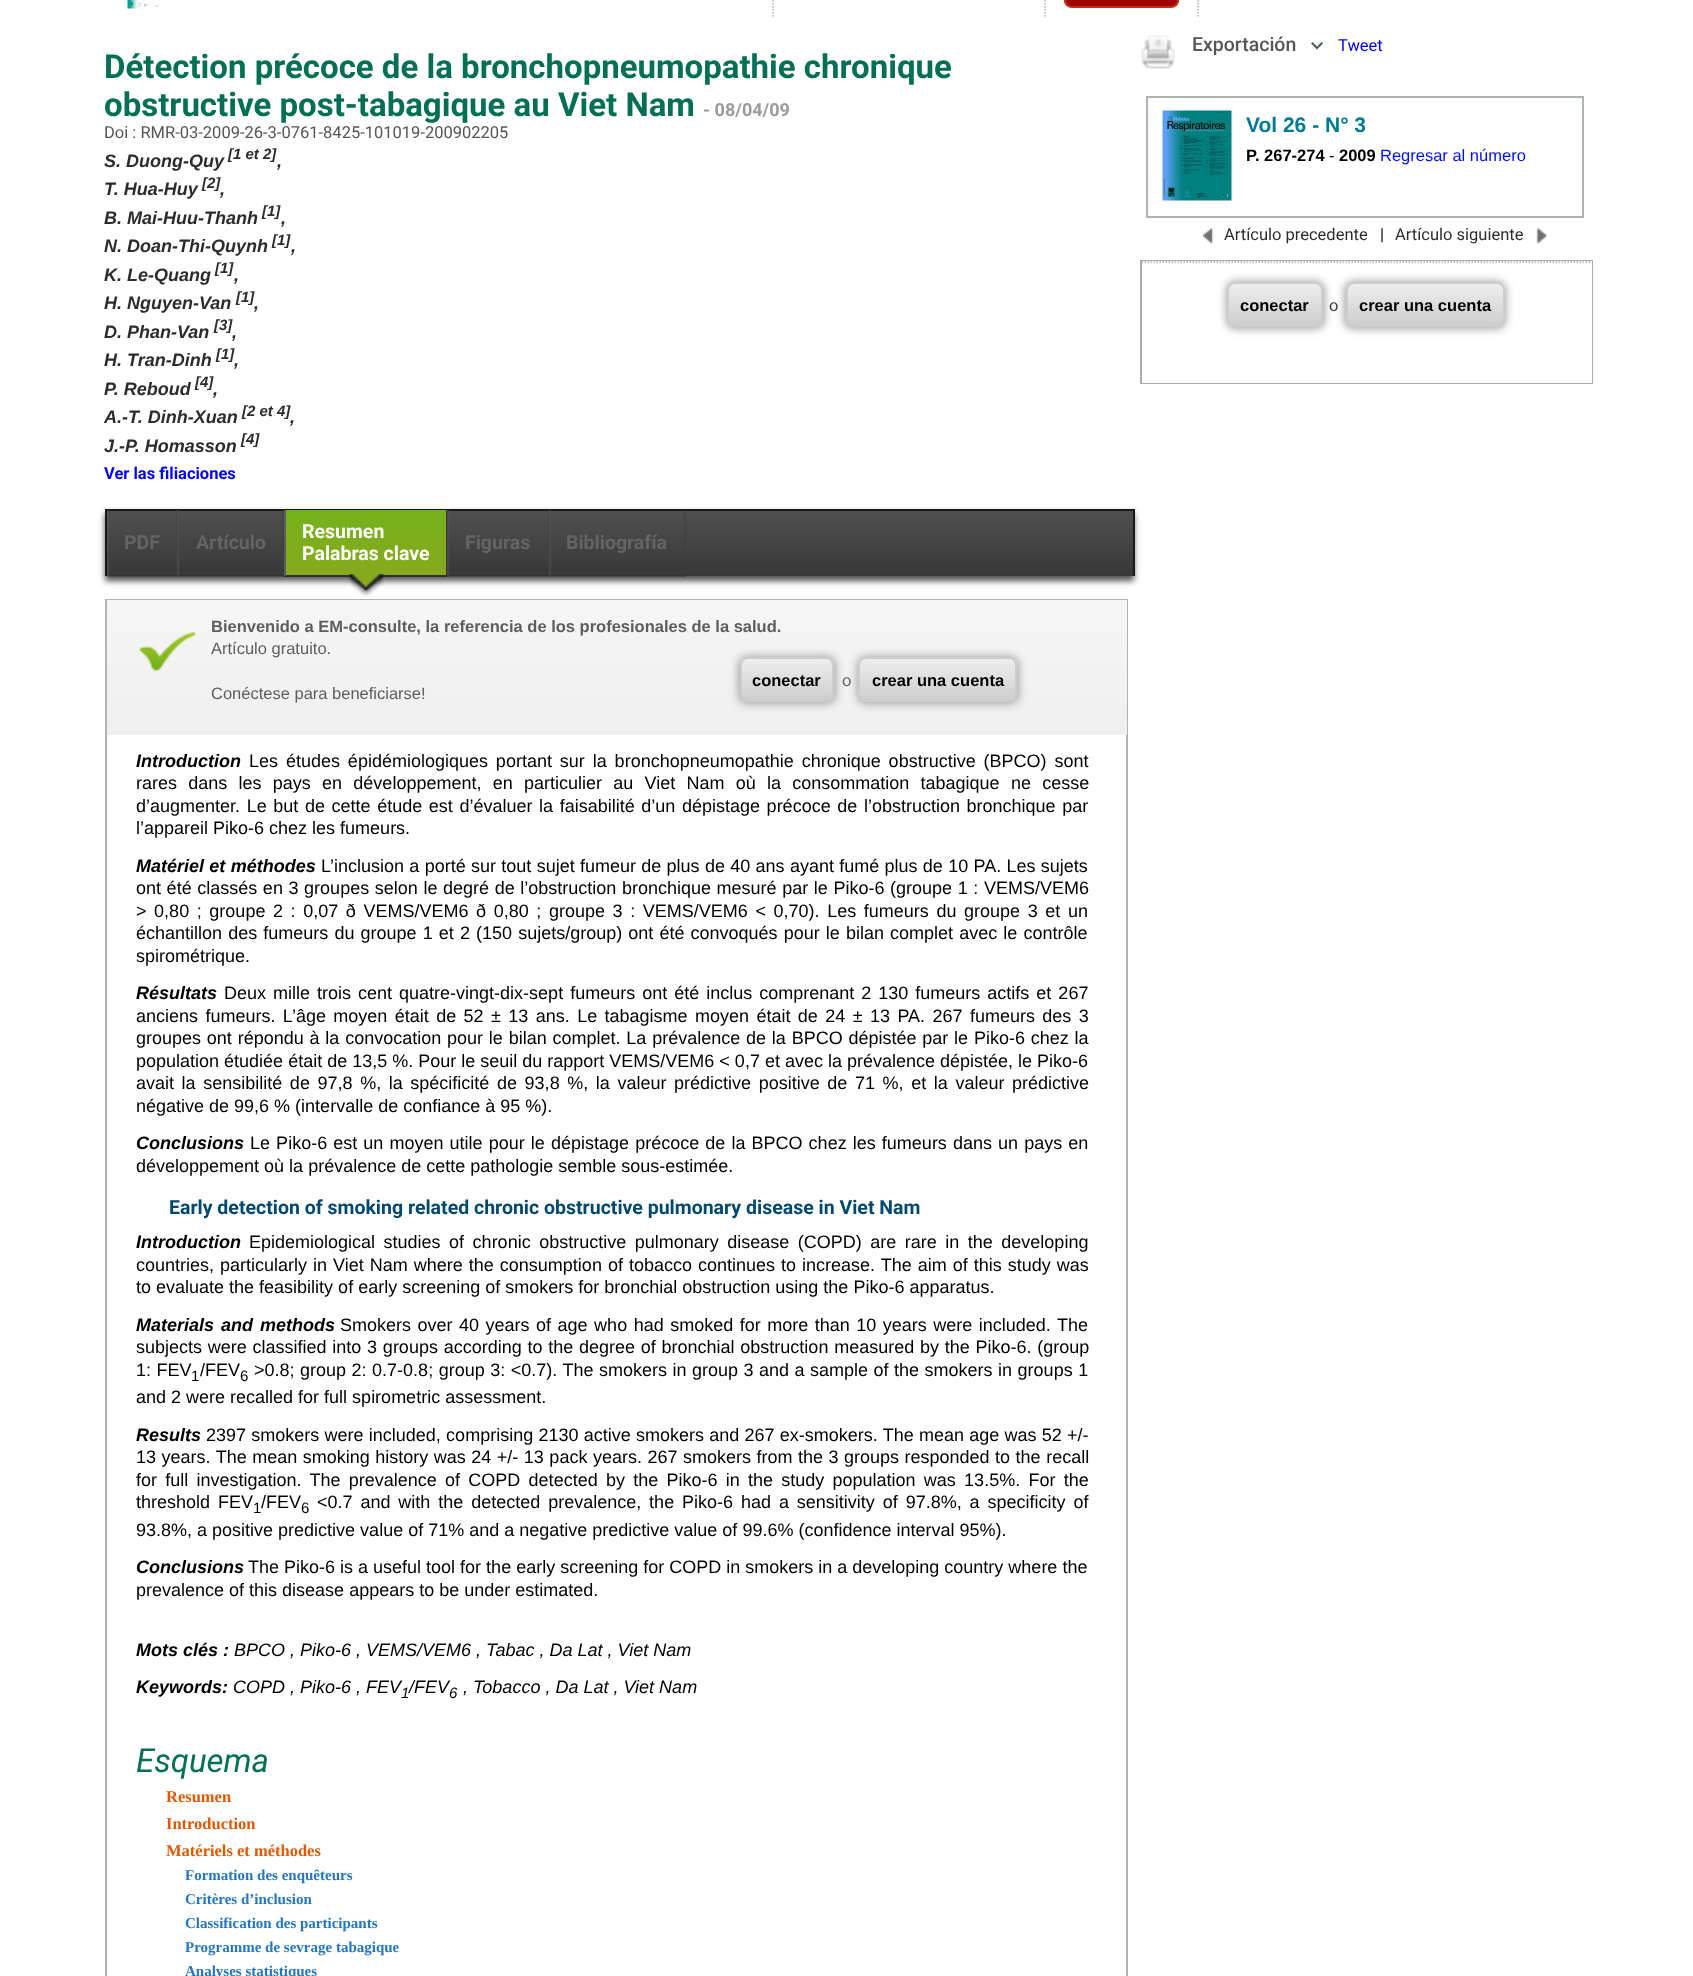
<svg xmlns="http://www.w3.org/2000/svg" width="1693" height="1976">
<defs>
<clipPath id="clip1"><rect x="1064" y="-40" width="115" height="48" rx="8"/></clipPath>
<linearGradient id="g1" gradientUnits="userSpaceOnUse" x1="1121" y1="-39" x2="1121" y2="6"><stop offset="0" stop-color="#ca0000"/><stop offset="1" stop-color="#a00000"/></linearGradient>
<linearGradient id="g2" gradientUnits="userSpaceOnUse" x1="620" y1="510" x2="620" y2="576"><stop offset="0" stop-color="#505050"/><stop offset="1" stop-color="#383838"/></linearGradient>
<linearGradient id="g3" gradientUnits="userSpaceOnUse" x1="620" y1="510" x2="620" y2="576"><stop offset="0" stop-color="#484848"/><stop offset="1" stop-color="#393939"/></linearGradient>
<linearGradient id="g4" gradientUnits="userSpaceOnUse" x1="365" y1="510" x2="365" y2="575"><stop offset="0" stop-color="#75b11d"/><stop offset="1" stop-color="#87a91d"/></linearGradient>
<linearGradient id="g5" gradientUnits="userSpaceOnUse" x1="617" y1="600" x2="617" y2="735"><stop offset="0" stop-color="#f6f6f7"/><stop offset="1" stop-color="#efefef"/></linearGradient>
<clipPath id="clip2"><rect x="740" y="657" width="94" height="45" rx="8"/></clipPath>
<linearGradient id="g6" gradientUnits="userSpaceOnUse" x1="787" y1="659" x2="787" y2="701"><stop offset="0" stop-color="#eee"/><stop offset="1" stop-color="#cdcdcd"/></linearGradient>
<clipPath id="clip3"><rect x="858" y="657" width="159" height="45" rx="8"/></clipPath>
<linearGradient id="g7" gradientUnits="userSpaceOnUse" x1="938" y1="659" x2="938" y2="701"><stop offset="0" stop-color="#eee"/><stop offset="1" stop-color="#cdcdcd"/></linearGradient>
<clipPath id="clip4"><rect x="1227" y="282" width="96" height="45" rx="8"/></clipPath>
<linearGradient id="g8" gradientUnits="userSpaceOnUse" x1="1275" y1="284" x2="1275" y2="326"><stop offset="0" stop-color="#eee"/><stop offset="1" stop-color="#cdcdcd"/></linearGradient>
<clipPath id="clip5"><rect x="1346" y="282" width="159" height="45" rx="8"/></clipPath>
<linearGradient id="g9" gradientUnits="userSpaceOnUse" x1="1425" y1="284" x2="1425" y2="326"><stop offset="0" stop-color="#eee"/><stop offset="1" stop-color="#cdcdcd"/></linearGradient>
</defs>
<rect width="100%" height="100%" fill="#fff"/>
<image x="127" y="0" width="32" height="9" href="media/1.png"/>
<path d="M773-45v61.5" fill="none" stroke="#b2b2b2" stroke-width="1.5" stroke-dasharray="1.5 1.5"/>
<path d="M1045-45v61.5" fill="none" stroke="#b2b2b2" stroke-width="1.5" stroke-dasharray="1.5 1.5"/>
<g clip-path="url(#clip1)">
<rect x="1064" width="115" height="6" fill="url(#g1)"/>
</g>
<rect x="1065" y="-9" width="113" height="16" rx="7" fill="none" stroke="#c03213" stroke-width="2"/>
<path d="M1198-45v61.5" fill="none" stroke="#b2b2b2" stroke-width="1.5" stroke-dasharray="1.5 1.5"/>
<text x="104" y="78" style="font-family:Roboto;font-size:33px;font-weight:bold;fill:#037056">Détection précoce de la bronchopneumopathie chronique</text>
<text x="104" y="116" style="font-family:Roboto;font-size:33px;font-weight:bold;fill:#037056">obstructive post-tabagique au Viet Nam</text>
<text x="703" y="116" style="font-family:Roboto;font-size:18px;font-weight:bold;fill:#9b9b9b">- 08/04/09</text>
<text x="104" y="138" style="font-family:Roboto;font-size:16.5px;fill:#555">Doi : RMR-03-2009-26-3-0761-8425-101019-200902205</text>
<text x="104" y="167" style="font-family:Liberation Sans;font-size:18px;font-weight:bold;font-style:italic;fill:#2c2c2c">S. Duong-Quy</text>
<text x="228" y="159" style="font-family:Liberation Sans;font-size:15px;font-weight:bold;font-style:italic;fill:#2c2c2c">[1 et 2]</text>
<text x="277" y="167" style="font-family:Liberation Sans;font-size:18px;font-weight:bold;font-style:italic;fill:#2c2c2c">,</text>
<text x="104" y="195" style="font-family:Liberation Sans;font-size:18px;font-weight:bold;font-style:italic;fill:#2c2c2c">T. Hua-Huy</text>
<text x="202" y="188" style="font-family:Liberation Sans;font-size:15px;font-weight:bold;font-style:italic;fill:#2c2c2c">[2]</text>
<text x="220" y="195" style="font-family:Liberation Sans;font-size:18px;font-weight:bold;font-style:italic;fill:#2c2c2c">,</text>
<text x="104" y="224" style="font-family:Liberation Sans;font-size:18px;font-weight:bold;font-style:italic;fill:#2c2c2c">B. Mai-Huu-Thanh</text>
<text x="262" y="216" style="font-family:Liberation Sans;font-size:15px;font-weight:bold;font-style:italic;fill:#2c2c2c">[1]</text>
<text x="281" y="224" style="font-family:Liberation Sans;font-size:18px;font-weight:bold;font-style:italic;fill:#2c2c2c">,</text>
<text x="104" y="252" style="font-family:Liberation Sans;font-size:18px;font-weight:bold;font-style:italic;fill:#2c2c2c">N. Doan-Thi-Quynh</text>
<text x="272" y="245" style="font-family:Liberation Sans;font-size:15px;font-weight:bold;font-style:italic;fill:#2c2c2c">[1]</text>
<text x="291" y="252" style="font-family:Liberation Sans;font-size:18px;font-weight:bold;font-style:italic;fill:#2c2c2c">,</text>
<text x="104" y="281" style="font-family:Liberation Sans;font-size:18px;font-weight:bold;font-style:italic;fill:#2c2c2c">K. Le-Quang</text>
<text x="215" y="273" style="font-family:Liberation Sans;font-size:15px;font-weight:bold;font-style:italic;fill:#2c2c2c">[1]</text>
<text x="234" y="281" style="font-family:Liberation Sans;font-size:18px;font-weight:bold;font-style:italic;fill:#2c2c2c">,</text>
<text x="104" y="309" style="font-family:Liberation Sans;font-size:18px;font-weight:bold;font-style:italic;fill:#2c2c2c">H. Nguyen-Van</text>
<text x="236" y="302" style="font-family:Liberation Sans;font-size:15px;font-weight:bold;font-style:italic;fill:#2c2c2c">[1]</text>
<text x="254" y="309" style="font-family:Liberation Sans;font-size:18px;font-weight:bold;font-style:italic;fill:#2c2c2c">,</text>
<text x="104" y="338" style="font-family:Liberation Sans;font-size:18px;font-weight:bold;font-style:italic;fill:#2c2c2c">D. Phan-Van</text>
<text x="214" y="330" style="font-family:Liberation Sans;font-size:15px;font-weight:bold;font-style:italic;fill:#2c2c2c">[3]</text>
<text x="232" y="338" style="font-family:Liberation Sans;font-size:18px;font-weight:bold;font-style:italic;fill:#2c2c2c">,</text>
<text x="104" y="366" style="font-family:Liberation Sans;font-size:18px;font-weight:bold;font-style:italic;fill:#2c2c2c">H. Tran-Dinh</text>
<text x="216" y="359" style="font-family:Liberation Sans;font-size:15px;font-weight:bold;font-style:italic;fill:#2c2c2c">[1]</text>
<text x="234" y="366" style="font-family:Liberation Sans;font-size:18px;font-weight:bold;font-style:italic;fill:#2c2c2c">,</text>
<text x="104" y="395" style="font-family:Liberation Sans;font-size:18px;font-weight:bold;font-style:italic;fill:#2c2c2c">P. Reboud</text>
<text x="195" y="387" style="font-family:Liberation Sans;font-size:15px;font-weight:bold;font-style:italic;fill:#2c2c2c">[4]</text>
<text x="213" y="395" style="font-family:Liberation Sans;font-size:18px;font-weight:bold;font-style:italic;fill:#2c2c2c">,</text>
<text x="104" y="423" style="font-family:Liberation Sans;font-size:18px;font-weight:bold;font-style:italic;fill:#2c2c2c">A.-T. Dinh-Xuan</text>
<text x="242" y="416" style="font-family:Liberation Sans;font-size:15px;font-weight:bold;font-style:italic;fill:#2c2c2c">[2 et 4]</text>
<text x="290" y="423" style="font-family:Liberation Sans;font-size:18px;font-weight:bold;font-style:italic;fill:#2c2c2c">,</text>
<text x="104" y="452" style="font-family:Liberation Sans;font-size:18px;font-weight:bold;font-style:italic;fill:#2c2c2c">J.-P. Homasson</text>
<text x="241" y="444" style="font-family:Liberation Sans;font-size:15px;font-weight:bold;font-style:italic;fill:#2c2c2c">[4]</text>
<text x="104" y="479" style="font-family:Roboto;font-size:16.5px;font-weight:bold;fill:#00f">Ver las filiaciones</text>
<rect x="105" y="513" width="1029" height="68" fill="#525252" filter="blur(3px)"/>
<rect x="107" y="511" width="1026" height="65" fill="url(#g2)"/>
<rect x="684" y="510" width="2" height="43" fill="url(#g3)"/>
<rect x="548" y="510" width="2" height="43" fill="url(#g3)"/>
<rect x="282" y="510" width="2" height="43" fill="url(#g3)"/>
<rect x="176" y="510" width="2" height="43" fill="url(#g3)"/>
<rect x="105" y="509" width="1029" height="2" fill="#191919"/>
<rect x="684" y="510" width="2" height="1" fill="#272727"/>
<rect x="548" y="510" width="2" height="1" fill="#272727"/>
<rect x="282" y="510" width="2" height="1" fill="#272727"/>
<rect x="176" y="510" width="2" height="1" fill="#272727"/>
<rect x="1133" y="509" width="2" height="67" fill="#191919"/>
<rect x="105" y="509" width="2" height="67" fill="#191919"/>
<rect x="107" y="575" width="70" height="2" fill="#2e2e2e66"/>
<rect x="107" y="510" width="2" height="66" fill="#5b5b5b66"/>
<text x="124" y="549" style="font-family:Roboto;font-size:19.5px;font-weight:bold;fill:#646464">PDF</text>
<rect x="177" y="575" width="107" height="2" fill="#2e2e2e66"/>
<rect x="177" y="510" width="2" height="66" fill="#5b5b5b66"/>
<text x="196" y="549" style="font-family:Roboto;font-size:19.5px;font-weight:bold;fill:#646464">Artículo</text>
<rect x="286" y="510" width="160" height="65" fill="url(#g4)"/>
<rect x="446" y="510" width="2" height="66" fill="#3b3b3b"/>
<rect x="284" y="575" width="163" height="2" fill="#2e2e2e"/>
<rect x="284" y="510" width="2" height="66" fill="#5b5b5b"/>
<text x="302" y="538" style="font-family:Roboto;font-size:19.5px;font-weight:bold;fill:#fff">Resumen</text>
<text x="302" y="560" style="font-family:Roboto;font-size:19.5px;font-weight:bold;fill:#fff">Palabras clave</text>
<image x="347" y="574" width="38" height="23" href="media/2.png"/>
<rect x="447" y="575" width="102" height="2" fill="#2e2e2e66"/>
<rect x="447" y="510" width="2" height="66" fill="#5b5b5b66"/>
<text x="465" y="549" style="font-family:Roboto;font-size:19.5px;font-weight:bold;fill:#646464">Figuras</text>
<rect x="549" y="575" width="137" height="2" fill="#2e2e2e66"/>
<rect x="549" y="510" width="2" height="66" fill="#5b5b5b66"/>
<text x="566" y="549" style="font-family:Roboto;font-size:19.5px;font-weight:bold;fill:#646464">Bibliografía</text>
<rect x="106" y="600" width="1021" height="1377" fill="none" stroke="#adb4b2" stroke-width="2"/>
<rect x="107" y="600" width="1020" height="135" fill="url(#g5)"/>
<image x="139" y="632" width="56" height="40" href="media/3.png"/>
<text x="211" y="632" style="font-family:Liberation Sans;font-size:16.5px;font-weight:bold;fill:#5d5d5d">Bienvenido a EM-consulte, la referencia de los profesionales de la salud.</text>
<text x="211" y="654" style="font-family:Liberation Sans;font-size:16.5px;fill:#5d5d5d">Artículo gratuito.</text>
<text x="211" y="699" style="font-family:Liberation Sans;font-size:16.5px;fill:#5d5d5d">Conéctese para beneficiarse!</text>
<rect x="738" y="656" width="98" height="48" rx="9" fill="#a6a6a6" filter="blur(4px)"/>
<g clip-path="url(#clip2)">
<rect x="740" y="659" width="94" height="42" fill="url(#g6)"/>
</g>
<rect x="741" y="658" width="92" height="43" rx="7" fill="none" stroke="#cdcdcd" stroke-width="2"/>
<text x="752" y="686" style="font-family:Liberation Sans;font-size:16.5px;font-weight:bold;fill:#000">conectar</text>
<text x="842" y="686" style="font-family:Roboto;font-size:16.5px;fill:#5d5d5d">o</text>
<rect x="857" y="656" width="162" height="48" rx="9" fill="#a6a6a6" filter="blur(4px)"/>
<g clip-path="url(#clip3)">
<rect x="858" y="659" width="159" height="42" fill="url(#g7)"/>
</g>
<rect x="859" y="658" width="157" height="43" rx="7" fill="none" stroke="#cdcdcd" stroke-width="2"/>
<text x="872" y="686" style="font-family:Liberation Sans;font-size:16.5px;font-weight:bold;fill:#000">crear una cuenta</text>
<text x="136" y="767" style="font-family:Liberation Sans;font-size:18px;font-weight:bold;font-style:italic;fill:#000">Introduction</text>
<text x="249" y="767" word-spacing="2.9" style="font-family:Liberation Sans;font-size:18px;fill:#000">Les études épidémiologiques portant sur la bronchopneumopathie chronique obstructive (BPCO) sont</text>
<text x="136" y="789" word-spacing="6.25" style="font-family:Liberation Sans;font-size:18px;fill:#000">rares dans les pays en développement, en particulier au Viet Nam où la consommation tabagique ne cesse</text>
<text x="136" y="812" word-spacing="1.6" style="font-family:Liberation Sans;font-size:18px;fill:#000">d’augmenter. Le but de cette étude est d’évaluer la faisabilité d’un dépistage précoce de l’obstruction bronchique par</text>
<text x="136" y="834" style="font-family:Liberation Sans;font-size:18px;fill:#000">l’appareil Piko-6 chez les fumeurs.</text>
<text x="136" y="872" word-spacing="0.3" style="font-family:Liberation Sans;font-size:18px;font-weight:bold;font-style:italic;fill:#000">Matériel et méthodes</text>
<text x="321" y="872" word-spacing="0.3" style="font-family:Liberation Sans;font-size:18px;fill:#000">L’inclusion a porté sur tout sujet fumeur de plus de 40 ans ayant fumé plus de 10 PA. Les sujets</text>
<text x="136" y="894" word-spacing="0.6" style="font-family:Liberation Sans;font-size:18px;fill:#000">ont été classés en 3 groupes selon le degré de l’obstruction bronchique mesuré par le Piko-6 (groupe 1 : VEMS/VEM6</text>
<text x="136" y="917" word-spacing="2.6" style="font-family:Liberation Sans;font-size:18px;fill:#000">&gt; 0,80 ; groupe 2 : 0,07 ð VEMS/VEM6 ð 0,80 ; groupe 3 : VEMS/VEM6 &lt; 0,70). Les fumeurs du groupe 3 et un</text>
<text x="136" y="939" word-spacing="1.1" style="font-family:Liberation Sans;font-size:18px;fill:#000">échantillon des fumeurs du groupe 1 et 2 (150 sujets/group) ont été convoqués pour le bilan complet avec le contrôle</text>
<text x="136" y="962" style="font-family:Liberation Sans;font-size:18px;fill:#000">spirométrique.</text>
<text x="136" y="999" style="font-family:Liberation Sans;font-size:18px;font-weight:bold;font-style:italic;fill:#000">Résultats</text>
<text x="224" y="999" word-spacing="2" style="font-family:Liberation Sans;font-size:18px;fill:#000">Deux mille trois cent quatre-vingt-dix-sept fumeurs ont été inclus comprenant 2 130 fumeurs actifs et 267</text>
<text x="136" y="1022" word-spacing="2.4" style="font-family:Liberation Sans;font-size:18px;fill:#000">anciens fumeurs. L’âge moyen était de 52 ± 13 ans. Le tabagisme moyen était de 24 ± 13 PA. 267 fumeurs des 3</text>
<text x="136" y="1044" word-spacing="0.8" style="font-family:Liberation Sans;font-size:18px;fill:#000">groupes ont répondu à la convocation pour le bilan complet. La prévalence de la BPCO dépistée par le Piko-6 chez la</text>
<text x="136" y="1067" style="font-family:Liberation Sans;font-size:18px;fill:#000">population étudiée était de 13,5 %. Pour le seuil du rapport VEMS/VEM6 &lt; 0,7 et avec la prévalence dépistée, le Piko-6</text>
<text x="136" y="1089" word-spacing="2.6" style="font-family:Liberation Sans;font-size:18px;fill:#000">avait la sensibilité de 97,8 %, la spécificité de 93,8 %, la valeur prédictive positive de 71 %, et la valeur prédictive</text>
<text x="136" y="1112" style="font-family:Liberation Sans;font-size:18px;fill:#000">négative de 99,6 % (intervalle de confiance à 95 %).</text>
<text x="136" y="1149" style="font-family:Liberation Sans;font-size:18px;font-weight:bold;font-style:italic;fill:#000">Conclusions</text>
<text x="250" y="1149" word-spacing="1.1" style="font-family:Liberation Sans;font-size:18px;fill:#000">Le Piko-6 est un moyen utile pour le dépistage précoce de la BPCO chez les fumeurs dans un pays en</text>
<text x="136" y="1172" style="font-family:Liberation Sans;font-size:18px;fill:#000">développement où la prévalence de cette pathologie semble sous-estimée.</text>
<text x="169" y="1214" style="font-family:Roboto;font-size:19.5px;font-weight:bold;fill:#00486d">Early detection of smoking related chronic obstructive pulmonary disease in Viet Nam</text>
<text x="136" y="1248" style="font-family:Liberation Sans;font-size:18px;font-weight:bold;font-style:italic;fill:#000">Introduction</text>
<text x="249" y="1248" word-spacing="3.5" style="font-family:Liberation Sans;font-size:18px;fill:#000">Epidemiological studies of chronic obstructive pulmonary disease (COPD) are rare in the developing</text>
<text x="136" y="1271" word-spacing="1" style="font-family:Liberation Sans;font-size:18px;fill:#000">countries, particularly in Viet Nam where the consumption of tobacco continues to increase. The aim of this study was</text>
<text x="136" y="1293" style="font-family:Liberation Sans;font-size:18px;fill:#000">to evaluate the feasibility of early screening of smokers for bronchial obstruction using the Piko-6 apparatus.</text>
<text x="136" y="1331" word-spacing="2" style="font-family:Liberation Sans;font-size:18px;font-weight:bold;font-style:italic;fill:#000">Materials and methods</text>
<text x="340" y="1331" word-spacing="1.5" style="font-family:Liberation Sans;font-size:18px;fill:#000">Smokers over 40 years of age who had smoked for more than 10 years were included. The</text>
<text x="136" y="1353" word-spacing="0.75" style="font-family:Liberation Sans;font-size:18px;fill:#000">subjects were classified into 3 groups according to the degree of bronchial obstruction measured by the Piko-6. (group</text>
<text x="136" y="1376" word-spacing="0.5" style="font-family:Liberation Sans;font-size:18px;fill:#000">1: FEV</text>
<text x="191" y="1381" style="font-family:Liberation Sans;font-size:15px;fill:#000">1</text>
<text x="200" y="1376" style="font-family:Liberation Sans;font-size:18px;fill:#000">/FEV</text>
<text x="240" y="1381" style="font-family:Liberation Sans;font-size:15px;fill:#000">6</text>
<text x="254" y="1376" word-spacing="0.5" style="font-family:Liberation Sans;font-size:18px;fill:#000">&gt;0.8; group 2: 0.7-0.8; group 3: &lt;0.7). The smokers in group 3 and a sample of the smokers in groups 1</text>
<text x="136" y="1403" style="font-family:Liberation Sans;font-size:18px;fill:#000">and 2 were recalled for full spirometric assessment.</text>
<text x="136" y="1441" style="font-family:Liberation Sans;font-size:18px;font-weight:bold;font-style:italic;fill:#000">Results</text>
<text x="206" y="1441" word-spacing="0.25" style="font-family:Liberation Sans;font-size:18px;fill:#000">2397 smokers were included, comprising 2130 active smokers and 267 ex-smokers. The mean age was 52 +/-</text>
<text x="136" y="1463" word-spacing="0.5" style="font-family:Liberation Sans;font-size:18px;fill:#000">13 years. The mean smoking history was 24 +/- 13 pack years. 267 smokers from the 3 groups responded to the recall</text>
<text x="136" y="1486" word-spacing="3.25" style="font-family:Liberation Sans;font-size:18px;fill:#000">for full investigation. The prevalence of COPD detected by the Piko-6 in the study population was 13.5%. For the</text>
<text x="136" y="1508" word-spacing="2.9" style="font-family:Liberation Sans;font-size:18px;fill:#000">threshold FEV</text>
<text x="253" y="1513" style="font-family:Liberation Sans;font-size:15px;fill:#000">1</text>
<text x="261" y="1508" style="font-family:Liberation Sans;font-size:18px;fill:#000">/FEV</text>
<text x="301" y="1513" style="font-family:Liberation Sans;font-size:15px;fill:#000">6</text>
<text x="317" y="1508" word-spacing="2.9" style="font-family:Liberation Sans;font-size:18px;fill:#000">&lt;0.7 and with the detected prevalence, the Piko-6 had a sensitivity of 97.8%, a specificity of</text>
<text x="136" y="1536" style="font-family:Liberation Sans;font-size:18px;fill:#000">93.8%, a positive predictive value of 71% and a negative predictive value of 99.6% (confidence interval 95%).</text>
<text x="136" y="1573" style="font-family:Liberation Sans;font-size:18px;font-weight:bold;font-style:italic;fill:#000">Conclusions</text>
<text x="248" y="1573" style="font-family:Liberation Sans;font-size:18px;fill:#000">The Piko-6 is a useful tool for the early screening for COPD in smokers in a developing country where the</text>
<text x="136" y="1596" style="font-family:Liberation Sans;font-size:18px;fill:#000">prevalence of this disease appears to be under estimated.</text>
<text x="136" y="1656" style="font-family:Liberation Sans;font-size:18px;font-weight:bold;font-style:italic;fill:#000">Mots clés :</text>
<text x="234" y="1656" style="font-family:Liberation Sans;font-size:18px;font-style:italic;fill:#000">BPCO , Piko-6 , VEMS/VEM6 , Tabac , Da Lat , Viet Nam</text>
<text x="136" y="1693" style="font-family:Liberation Sans;font-size:18px;font-weight:bold;font-style:italic;fill:#000">Keywords:</text>
<text x="233" y="1693" style="font-family:Liberation Sans;font-size:18px;font-style:italic;fill:#000">COPD , Piko-6 , FEV</text>
<text x="401" y="1698" style="font-family:Liberation Sans;font-size:15px;font-style:italic;fill:#000">1</text>
<text x="409" y="1693" style="font-family:Liberation Sans;font-size:18px;font-style:italic;fill:#000">/FEV</text>
<text x="449" y="1698" style="font-family:Liberation Sans;font-size:15px;font-style:italic;fill:#000">6</text>
<text x="463" y="1693" style="font-family:Liberation Sans;font-size:18px;font-style:italic;fill:#000">, Tobacco , Da Lat , Viet Nam</text>
<text x="136" y="1772" style="font-family:Roboto;font-size:33px;font-style:italic;fill:#037056">Esquema</text>
<text x="166" y="1802" style="font-family:Liberation Serif;font-size:16.5px;font-weight:bold;fill:#e05800">Resumen</text>
<text x="166" y="1829" style="font-family:Liberation Serif;font-size:16.5px;font-weight:bold;fill:#e05800">Introduction</text>
<text x="166" y="1856" style="font-family:Liberation Serif;font-size:16.5px;font-weight:bold;fill:#e05800">Matériels et méthodes</text>
<text x="185" y="1880" style="font-family:Liberation Serif;font-size:15px;font-weight:bold;fill:#2576c2">Formation des enquêteurs</text>
<text x="185" y="1904" style="font-family:Liberation Serif;font-size:15px;font-weight:bold;fill:#2576c2">Critères d’inclusion</text>
<text x="185" y="1928" style="font-family:Liberation Serif;font-size:15px;font-weight:bold;fill:#2576c2">Classification des participants</text>
<text x="185" y="1952" style="font-family:Liberation Serif;font-size:15px;font-weight:bold;fill:#2576c2">Programme de sevrage tabagique</text>
<text x="185" y="1976" style="font-family:Liberation Serif;font-size:15px;font-weight:bold;fill:#2576c2">Analyses statistiques</text>
<image x="1141" y="35" width="34" height="34" href="media/4.png"/>
<text x="1192" y="51" style="font-family:Roboto;font-size:19.5px;font-weight:500;fill:#555">Exportación</text>
<image x="1311" y="42" width="12" height="8" href="media/5.png"/>
<text x="1338" y="51" style="font-family:Roboto;font-size:16.5px;fill:#00e">Tweet</text>
<rect x="1147" y="97" width="436" height="120" fill="none" stroke="#adb4b2" stroke-width="2"/>
<image x="1162" y="110" width="70" height="91" href="media/6.png"/>
<text x="1246" y="132" style="font-family:Liberation Sans;font-size:21px;font-weight:bold;fill:#007992">Vol 26 - N° 3</text>
<text x="1246" y="161" style="font-family:Liberation Sans;font-size:16.5px;font-weight:bold;fill:#000">P. 267-274</text>
<text x="1329" y="161" style="font-family:Liberation Sans;font-size:16.5px;fill:#000">-</text>
<text x="1339" y="161" style="font-family:Liberation Sans;font-size:16.5px;font-weight:bold;fill:#000">2009</text>
<text x="1380" y="161" style="font-family:Liberation Sans;font-size:16.5px;fill:#000cff">Regresar al número</text>
<image x="1203" y="227" width="11" height="17" href="media/7.png"/>
<text x="1224" y="240" style="font-family:Roboto;font-size:16.5px;fill:#2c2c2c">Artículo precedente</text>
<text x="1380" y="240" style="font-family:Roboto;font-size:16.5px;fill:#000">|</text>
<text x="1395" y="240" style="font-family:Roboto;font-size:16.5px;fill:#2c2c2c">Artículo siguiente</text>
<image x="1536" y="227" width="11" height="17" href="media/8.png"/>
<rect x="1141" y="261" width="451" height="122" fill="none" stroke="#a7aeac" stroke-width="2"/>
<rect x="1142" y="261" width="450" height="122" fill="#fff"/>
<path d="M1141.5 262h450" fill="none" stroke="#a7aeac" stroke-width="1.5" stroke-dasharray="1.5 1.5"/>
<rect x="1226" y="281" width="99" height="48" rx="9" fill="#a6a6a6" filter="blur(4px)"/>
<g clip-path="url(#clip4)">
<rect x="1227" y="284" width="96" height="42" fill="url(#g8)"/>
</g>
<rect x="1228" y="283" width="94" height="43" rx="7" fill="none" stroke="#cdcdcd" stroke-width="2"/>
<text x="1240" y="311" style="font-family:Liberation Sans;font-size:16.5px;font-weight:bold;fill:#000">conectar</text>
<text x="1329" y="311" style="font-family:Roboto;font-size:16.5px;fill:#373737">o</text>
<rect x="1344" y="281" width="162" height="48" rx="9" fill="#a6a6a6" filter="blur(4px)"/>
<g clip-path="url(#clip5)">
<rect x="1346" y="284" width="159" height="42" fill="url(#g9)"/>
</g>
<rect x="1347" y="283" width="157" height="43" rx="7" fill="none" stroke="#cdcdcd" stroke-width="2"/>
<text x="1359" y="311" style="font-family:Liberation Sans;font-size:16.5px;font-weight:bold;fill:#000">crear una cuenta</text>
</svg>
